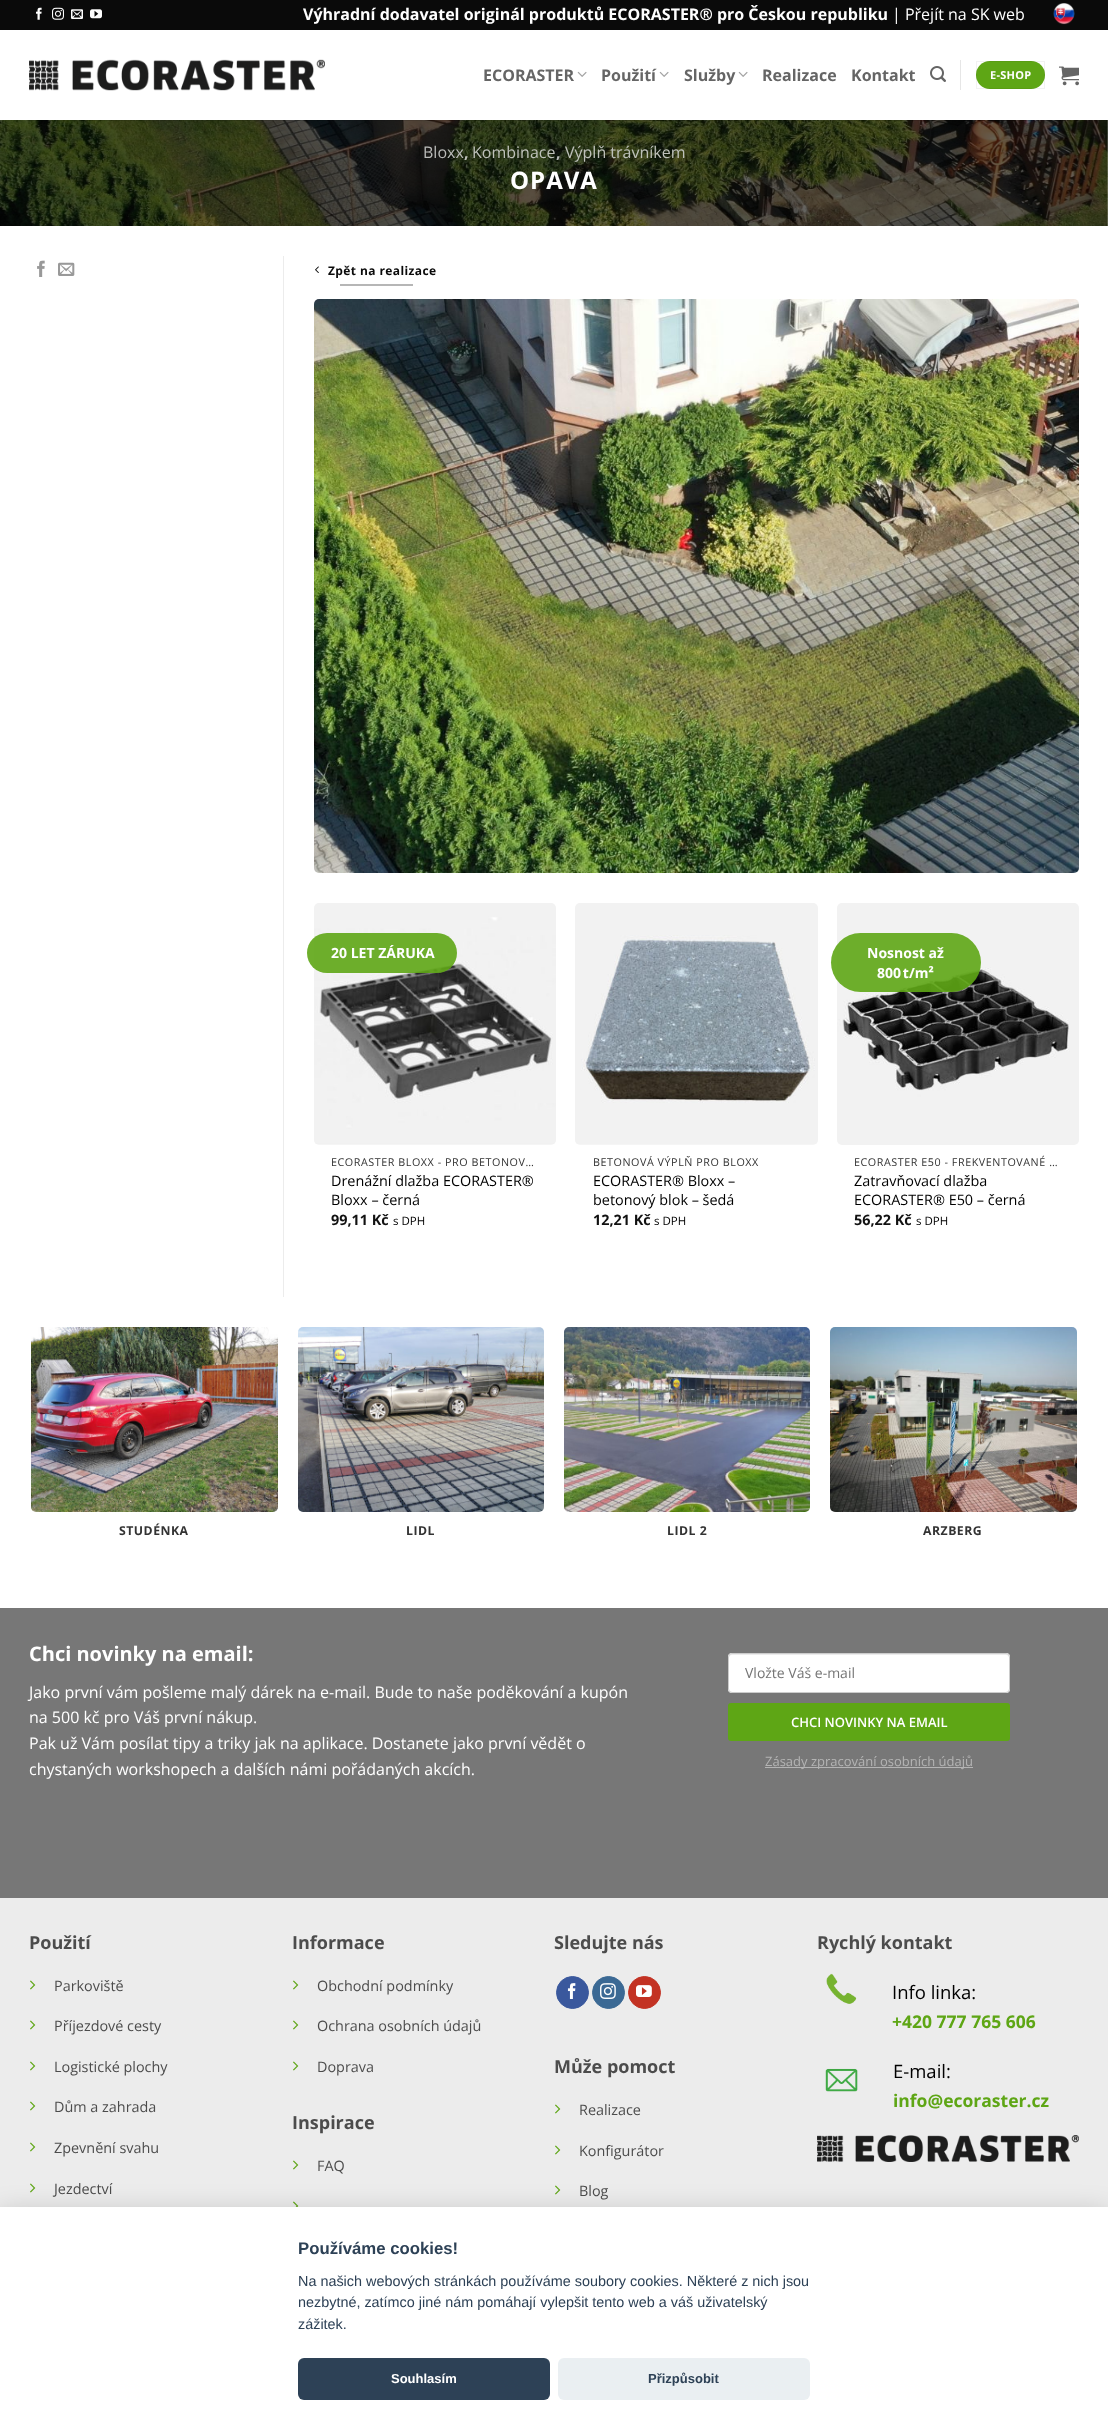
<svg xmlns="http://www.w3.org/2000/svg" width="1108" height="2432">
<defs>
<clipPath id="clip1"><rect x="593" y="1156" width="207" height="13"/></clipPath>
</defs>
<rect width="100%" height="100%" fill="#fff"/>
<rect width="1108" height="30" fill="#0a0a0a"/>
<image x="36" y="7" width="6" height="13" href="media/1.png"/>
<image x="52" y="7" width="12" height="13" href="media/2.png"/>
<image x="71" y="9" width="12" height="10" href="media/3.png"/>
<image x="90" y="9" width="12" height="10" href="media/4.png"/>
<text x="303" y="20" style="font-family:Open Sans;font-size:16px;font-weight:bold;fill:#fff">Výhradní dodavatel originál produktů ECORASTER® pro Českou republiku</text>
<text x="892" y="20" style="font-family:Open Sans;font-size:16px;fill:#fff">| Přejít na SK web</text>
<image x="1053" y="3" width="22" height="22" href="media/5.png"/>
<image x="29" y="59" width="296" height="32" href="media/6.png"/>
<text x="483" y="81" style="font-family:Open Sans;font-size:16px;font-weight:bold;fill:#656565">ECORASTER</text>
<image x="577" y="71" width="10" height="6" href="media/7.png"/>
<text x="601" y="81" style="font-family:Open Sans;font-size:16px;font-weight:bold;fill:#656565">Použití</text>
<image x="659" y="71" width="10" height="6" href="media/7.png"/>
<text x="684" y="81" style="font-family:Open Sans;font-size:16px;font-weight:bold;fill:#656565">Služby</text>
<image x="738" y="71" width="10" height="6" href="media/7.png"/>
<text x="762" y="81" style="font-family:Open Sans;font-size:16px;font-weight:bold;fill:#656565">Realizace</text>
<text x="851" y="81" style="font-family:Open Sans;font-size:16px;font-weight:bold;fill:#656565">Kontakt</text>
<image x="930" y="66" width="16" height="16" href="media/8.png"/>
<rect x="960" y="60" width="1" height="30" fill="#e6e6e6"/>
<rect x="976" y="61" width="69" height="28" rx="14" fill="#5ea615"/>
<rect x="976.5" y="61.5" width="68" height="27" fill="none" stroke="#0000000d"/>
<text x="990" y="79" style="font-family:Open Sans;font-size:11px;font-weight:bold;letter-spacing:0.25px;fill:#fff">E-SHOP</text>
<image x="1059" y="66" width="20" height="20" href="media/9.png"/>
<image x="0" y="120" width="1108" height="106" href="media/10.png"/>
<rect x="29" y="120" width="1050" height="1" fill="#0000001a"/>
<text x="423" y="158" style="font-family:Open Sans;font-size:16px;fill:#babbb9">Bloxx</text>
<text x="464" y="158" style="font-family:Open Sans;font-size:16px;font-weight:bold;fill:#bec1ba">,</text>
<text x="472" y="158" style="font-family:Open Sans;font-size:16px;fill:#bec1ba">Kombinace</text>
<text x="556" y="158" style="font-family:Open Sans;font-size:16px;font-weight:bold;fill:#babbb9">,</text>
<text x="565" y="158" style="font-family:Open Sans;font-size:16px;fill:#bec1ba">Výplň trávníkem</text>
<text x="510" y="189" style="font-family:Open Sans;font-size:24px;font-weight:bold;letter-spacing:1px;fill:#fff">OPAVA</text>
<rect x="283" y="256" width="1" height="1041" fill="#ececec"/>
<image x="37" y="260" width="8" height="17" href="media/11.png"/>
<image x="58" y="262" width="17" height="14" href="media/12.png"/>
<image x="315" y="266" width="4" height="7" href="media/13.png"/>
<text x="328" y="275" style="font-family:Open Sans;font-size:12px;font-weight:bold;letter-spacing:0.4px;fill:#0a0a0a">Zpět na realizace</text>
<rect x="340" y="284" width="73" height="2" fill="#b6b6b6"/>
<image x="314" y="299" width="765" height="574" href="media/14.png"/>
<image x="314" y="903" width="242" height="242" href="media/15.png"/>
<rect x="307" y="933" width="150" height="40" rx="20" fill="#5ea615e6"/>
<text x="331" y="958" style="font-family:Open Sans;font-size:14px;font-weight:bold;fill:#fff">20 LET ZÁRUKA</text>
<text x="331" y="1166" style="font-family:Open Sans;font-size:10.75px;letter-spacing:0.55px;fill:#333">ECORASTER BLOXX - PRO BETONOV…</text>
<text x="331" y="1186" style="font-family:Open Sans;font-size:14.4px;fill:#000">Drenážní dlažba ECORASTER®</text>
<text x="331" y="1205" style="font-family:Open Sans;font-size:14.4px;fill:#000">Bloxx – černá</text>
<text x="331" y="1225" style="font-family:Open Sans;font-size:14.4px;font-weight:bold;fill:#111">99,11 Kč</text>
<text x="393" y="1225" style="font-family:Open Sans;font-size:11.5px;fill:#000">s DPH</text>
<image x="575" y="903" width="243" height="242" href="media/16.png"/>
<g clip-path="url(#clip1)">
<text x="593" y="1166" style="font-family:Open Sans;font-size:10.75px;letter-spacing:0.55px;fill:#333">BETONOVÁ VÝPLŇ PRO BLOXX</text>
</g>
<text x="593" y="1186" style="font-family:Open Sans;font-size:14.4px;fill:#000">ECORASTER® Bloxx –</text>
<text x="593" y="1205" style="font-family:Open Sans;font-size:14.4px;fill:#000">betonový blok – šedá</text>
<text x="593" y="1225" style="font-family:Open Sans;font-size:14.4px;font-weight:bold;fill:#111">12,21 Kč</text>
<text x="654" y="1225" style="font-family:Open Sans;font-size:11.5px;fill:#000">s DPH</text>
<image x="837" y="903" width="242" height="242" href="media/17.png"/>
<rect x="831" y="933" width="150" height="59" rx="29.5" fill="#5ea615e6"/>
<text x="867" y="958" style="font-family:Open Sans;font-size:14px;font-weight:bold;fill:#fff">Nosnost až</text>
<text x="877" y="978" style="font-family:Open Sans;font-size:14px;font-weight:bold;fill:#fff">800 t/m²</text>
<text x="854" y="1166" style="font-family:Open Sans;font-size:10.75px;letter-spacing:0.55px;fill:#333">ECORASTER E50 - FREKVENTOVANÉ …</text>
<text x="854" y="1186" style="font-family:Open Sans;font-size:14.4px;fill:#000">Zatravňovací dlažba</text>
<text x="854" y="1205" style="font-family:Open Sans;font-size:14.4px;fill:#000">ECORASTER® E50 – černá</text>
<text x="854" y="1225" style="font-family:Open Sans;font-size:14.4px;font-weight:bold;fill:#111">56,22 Kč</text>
<text x="916" y="1225" style="font-family:Open Sans;font-size:11.5px;fill:#000">s DPH</text>
<image x="31" y="1327" width="247" height="185" href="media/18.png"/>
<text x="119" y="1535" style="font-family:Open Sans;font-size:12.25px;font-weight:bold;letter-spacing:0.5px;fill:#333">STUDÉNKA</text>
<image x="298" y="1327" width="246" height="185" href="media/19.png"/>
<text x="406" y="1535" style="font-family:Open Sans;font-size:12.25px;font-weight:bold;letter-spacing:0.5px;fill:#333">LIDL</text>
<image x="564" y="1327" width="246" height="185" href="media/20.png"/>
<text x="667" y="1535" style="font-family:Open Sans;font-size:12.25px;font-weight:bold;letter-spacing:0.5px;fill:#333">LIDL 2</text>
<image x="830" y="1327" width="247" height="185" href="media/21.png"/>
<text x="923" y="1535" style="font-family:Open Sans;font-size:12.25px;font-weight:bold;letter-spacing:0.5px;fill:#333">ARZBERG</text>
<rect y="1608" width="1108" height="290" fill="#777"/>
<text x="29" y="1661" style="font-family:Open Sans;font-size:20px;font-weight:bold;fill:#fff">Chci novinky na email:</text>
<text x="29" y="1698" style="font-family:Open Sans;font-size:16px;fill:#fff">Jako první vám pošleme malý dárek na e-mail. Bude to naše poděkování a kupón</text>
<text x="29" y="1723" style="font-family:Open Sans;font-size:16px;fill:#fff">na 500 kč pro Váš první nákup.</text>
<text x="29" y="1749" style="font-family:Open Sans;font-size:16px;fill:#fff">Pak už Vám posílat tipy a triky jak na aplikace. Dostanete jako první vědět o</text>
<text x="29" y="1775" style="font-family:Open Sans;font-size:16px;fill:#fff">chystaných workshopech a dalších námi pořádaných akcích.</text>
<rect x="728" y="1653" width="282" height="40" rx="4" fill="#fff"/>
<path d="M732 1655h274c2 0 3 1 3 3v-1c0-2-1-3-3-3h-274c-2 0-3 1-3 3v1c0-2 1-3 3-3z" fill="#ececec"/>
<rect x="728.5" y="1653.5" width="281" height="39" rx="3.5" fill="none" stroke="#ccc"/>
<text x="745" y="1678" style="font-family:Open Sans;font-size:14px;fill:#757575">Vložte Váš e-mail</text>
<rect x="728" y="1703" width="282" height="38" rx="3" fill="#5ea615"/>
<text x="791" y="1727" style="font-family:Open Sans;font-size:13px;font-weight:600;fill:#fff">CHCI NOVINKY NA EMAIL</text>
<rect x="765" y="1767" width="208" height="1" fill="#b4b4b4"/>
<text x="765" y="1766" style="font-family:Open Sans;font-size:13px;fill:#b4b4b4">Zásady zpracování osobních údajů</text>
<rect y="1898" width="1108" height="309" fill="#ececec"/>
<text x="29" y="1949" style="font-family:Open Sans;font-size:18px;font-weight:bold;fill:#4c4c4c">Použití</text>
<image x="30" y="1980" width="6" height="10" href="media/22.png"/>
<text x="54" y="1991" style="font-family:Open Sans;font-size:14.4px;fill:#4c4c4c">Parkoviště</text>
<image x="30" y="2020" width="6" height="10" href="media/22.png"/>
<text x="54" y="2031" style="font-family:Open Sans;font-size:14.4px;fill:#4c4c4c">Příjezdové cesty</text>
<image x="30" y="2061" width="6" height="10" href="media/22.png"/>
<text x="54" y="2072" style="font-family:Open Sans;font-size:14.4px;fill:#4c4c4c">Logistické plochy</text>
<image x="30" y="2101" width="6" height="10" href="media/22.png"/>
<text x="54" y="2112" style="font-family:Open Sans;font-size:14.4px;fill:#4c4c4c">Dům a zahrada</text>
<image x="30" y="2142" width="6" height="10" href="media/22.png"/>
<text x="54" y="2153" style="font-family:Open Sans;font-size:14.4px;fill:#4c4c4c">Zpevnění svahu</text>
<image x="30" y="2183" width="6" height="10" href="media/22.png"/>
<text x="54" y="2194" style="font-family:Open Sans;font-size:14.4px;fill:#4c4c4c">Jezdectví</text>
<text x="292" y="1949" style="font-family:Open Sans;font-size:18px;font-weight:bold;fill:#4c4c4c">Informace</text>
<image x="293" y="1980" width="6" height="10" href="media/22.png"/>
<text x="317" y="1991" style="font-family:Open Sans;font-size:14.4px;fill:#4c4c4c">Obchodní podmínky</text>
<image x="293" y="2020" width="6" height="10" href="media/22.png"/>
<text x="317" y="2031" style="font-family:Open Sans;font-size:14.4px;fill:#4c4c4c">Ochrana osobních údajů</text>
<image x="293" y="2061" width="6" height="10" href="media/22.png"/>
<text x="317" y="2072" style="font-family:Open Sans;font-size:14.4px;fill:#4c4c4c">Doprava</text>
<text x="292" y="2129" style="font-family:Open Sans;font-size:18px;font-weight:bold;fill:#4c4c4c">Inspirace</text>
<image x="293" y="2160" width="6" height="10" href="media/22.png"/>
<text x="317" y="2171" style="font-family:Open Sans;font-size:14.4px;fill:#4c4c4c">FAQ</text>
<image x="293" y="2201" width="6" height="6" href="media/23.png"/>
<text x="554" y="1949" style="font-family:Open Sans;font-size:18px;font-weight:bold;fill:#4c4c4c">Sledujte nás</text>
<circle cx="572.5" cy="1992.5" r="16" fill="#3a589d" stroke="#3a589d"/>
<image x="567" y="1983" width="9" height="16" href="media/24.png"/>
<circle cx="608.5" cy="1992.5" r="16" fill="#3b6994" stroke="#3b6994"/>
<image x="600" y="1983" width="16" height="16" href="media/25.png"/>
<circle cx="644.5" cy="1992.5" r="16" fill="#c33223" stroke="#c33223"/>
<image x="636" y="1985" width="16" height="12" href="media/26.png"/>
<text x="554" y="2073" style="font-family:Open Sans;font-size:18px;font-weight:bold;fill:#4c4c4c">Může pomoct</text>
<image x="555" y="2104" width="6" height="10" href="media/22.png"/>
<text x="579" y="2115" style="font-family:Open Sans;font-size:14.4px;fill:#4c4c4c">Realizace</text>
<image x="555" y="2145" width="6" height="10" href="media/22.png"/>
<text x="579" y="2156" style="font-family:Open Sans;font-size:14.4px;fill:#4c4c4c">Konfigurátor</text>
<image x="555" y="2185" width="6" height="10" href="media/22.png"/>
<text x="579" y="2196" style="font-family:Open Sans;font-size:14.4px;fill:#4c4c4c">Blog</text>
<text x="817" y="1949" style="font-family:Open Sans;font-size:18px;font-weight:bold;fill:#4c4c4c">Rychlý kontakt</text>
<image x="826" y="1973" width="31" height="31" href="media/27.png"/>
<text x="892" y="1999" style="font-family:Open Sans;font-size:18.5px;fill:#000">Info linka:</text>
<text x="892" y="2028" style="font-family:Open Sans;font-size:17.5px;font-weight:bold;fill:#5ea615">+420 777 765 606</text>
<image x="825" y="2068" width="33" height="24" href="media/28.png"/>
<text x="893" y="2078" style="font-family:Open Sans;font-size:18.5px;fill:#000">E-mail:</text>
<text x="893" y="2107" style="font-family:Open Sans;font-size:17.5px;font-weight:bold;fill:#5ea615">info@ecoraster.cz</text>
<image x="817" y="2135" width="262" height="27" href="media/29.png"/>
<rect y="2217" width="1108" height="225" fill="#02020347" filter="blur(15px)"/>
<rect y="2207" width="1108" height="225" fill="#fff"/>
<text x="298" y="2254" style="font-family:Liberation Sans;font-size:16.75px;font-weight:bold;fill:#2d4156">Používáme cookies!</text>
<text x="298" y="2286" style="font-family:Liberation Sans;font-size:14.4px;fill:#2d4156">Na našich webových stránkách používáme soubory cookies. Některé z nich jsou</text>
<text x="298" y="2307" style="font-family:Liberation Sans;font-size:14.4px;fill:#2d4156">nezbytné, zatímco jiné nám pomáhají vylepšit tento web a váš uživatelský</text>
<text x="298" y="2329" style="font-family:Liberation Sans;font-size:14.4px;fill:#2d4156">zážitek.</text>
<rect x="298" y="2358" width="252" height="42" rx="6" fill="#2d4156"/>
<text x="391" y="2383" style="font-family:Liberation Sans;font-size:13px;font-weight:bold;fill:#fff">Souhlasím</text>
<rect x="558" y="2358" width="252" height="42" rx="6" fill="#eaeff2"/>
<text x="648" y="2383" style="font-family:Liberation Sans;font-size:13px;font-weight:bold;fill:#2d4156">Přizpůsobit</text>
</svg>
